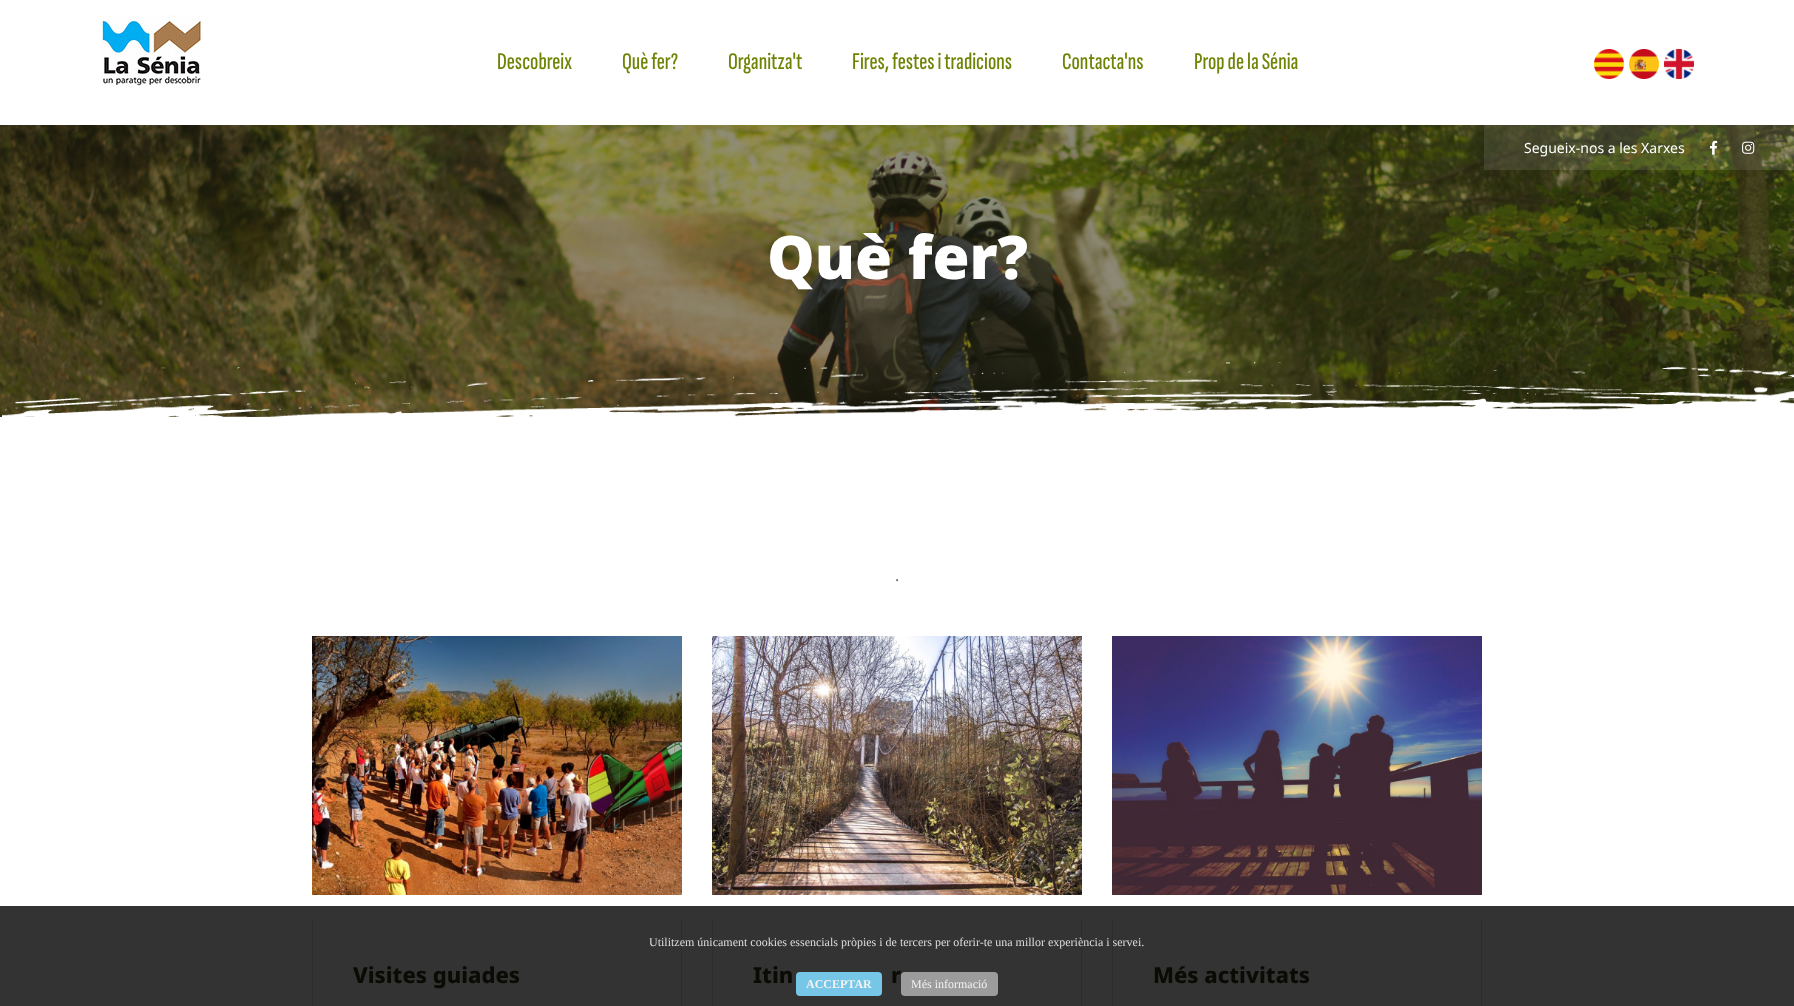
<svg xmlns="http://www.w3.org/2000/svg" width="1794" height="1006">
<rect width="100%" height="100%" fill="#fff"/>
<rect y="906" width="1794" height="100" fill="#333"/>
<image x="100" y="15" width="101" height="72" href="media/1.png"/>
<text x="497" y="69" style="font-family:Sofia Sans Extra Condensed;font-size:24px;font-weight:500;fill:#6e8405">Descobreix</text>
<text x="622" y="69" style="font-family:Sofia Sans Extra Condensed;font-size:24px;font-weight:500;fill:#6e8405">Què fer?</text>
<text x="728" y="69" style="font-family:Sofia Sans Extra Condensed;font-size:24px;font-weight:500;fill:#6e8405">Organitza't</text>
<text x="852" y="69" style="font-family:Sofia Sans Extra Condensed;font-size:24px;font-weight:500;fill:#6e8405">Fires, festes i tradicions</text>
<text x="1062" y="69" style="font-family:Sofia Sans Extra Condensed;font-size:24px;font-weight:500;fill:#6e8405">Contacta'ns</text>
<text x="1194" y="69" style="font-family:Sofia Sans Extra Condensed;font-size:24px;font-weight:500;fill:#6e8405">Prop de la Sénia</text>
<image x="1594" y="49" width="30" height="30" href="media/2.png"/>
<image x="1629" y="49" width="30" height="30" href="media/3.png"/>
<image x="1664" y="49" width="30" height="30" href="media/4.png"/>
<image x="0" y="125" width="1794" height="292" href="media/5.png"/>
<rect x="1484" y="125" width="310" height="45" fill="#ffffff1a"/>
<text x="1524" y="153" style="font-family:Noto Sans;font-size:14px;fill:#fff">Segueix-nos a les Xarxes</text>
<image x="1710" y="140" width="8" height="15" href="media/6.png"/>
<image x="1742" y="141" width="13" height="13" href="media/7.png"/>
<text x="767" y="279" style="font-family:Noto Sans;font-size:60px;font-weight:900;fill:#fff">Què fer?</text>
<image x="2" y="362" width="1792" height="55" href="media/8.png"/>
<text x="895" y="581" style="font-family:Noto Sans;font-size:16px;fill:#7c6f68">.</text>
<image x="312" y="636" width="370" height="259" href="media/9.png"/>
<rect x="681" y="919" width="1" height="87" fill="#2d2c2b"/>
<rect x="312" y="919" width="1" height="87" fill="#2d2c2b"/>
<text x="353" y="983" style="font-family:Noto Sans;font-size:22px;font-weight:800;fill:#0a0b05">Visites guiades</text>
<image x="712" y="636" width="370" height="259" href="media/10.png"/>
<rect x="1081" y="919" width="1" height="87" fill="#2d2c2b"/>
<rect x="712" y="919" width="1" height="87" fill="#2d2c2b"/>
<text x="753" y="983" style="font-family:Noto Sans;font-size:22px;font-weight:800;fill:#0a0b05">Itin</text>
<text x="891" y="983" style="font-family:Noto Sans;font-size:22px;font-weight:800;fill:#0a0b05">r</text>
<image x="1112" y="636" width="370" height="259" href="media/11.png"/>
<rect x="1481" y="919" width="1" height="87" fill="#2d2c2b"/>
<rect x="1112" y="919" width="1" height="87" fill="#2d2c2b"/>
<text x="1153" y="983" style="font-family:Noto Sans;font-size:22px;font-weight:800;fill:#0a0b05">Més activitats</text>
<text x="649" y="946" style="font-family:Liberation Serif;font-size:12px;fill:#ddd">Utilitzem únicament cookies essencials pròpies i de tercers per oferir-te una millor experiència i servei.</text>
<rect x="796" y="972" width="86" height="24" rx="4" fill="#76c6e8"/>
<text x="806" y="988" style="font-family:Liberation Serif;font-size:12px;font-weight:bold;fill:#f2f2f2">ACCEPTAR</text>
<rect x="901" y="972" width="97" height="24" rx="4" fill="#9c9c9c"/>
<text x="911" y="988" style="font-family:Liberation Serif;font-size:12px;fill:#f2f2f2">Més informació</text>
</svg>
